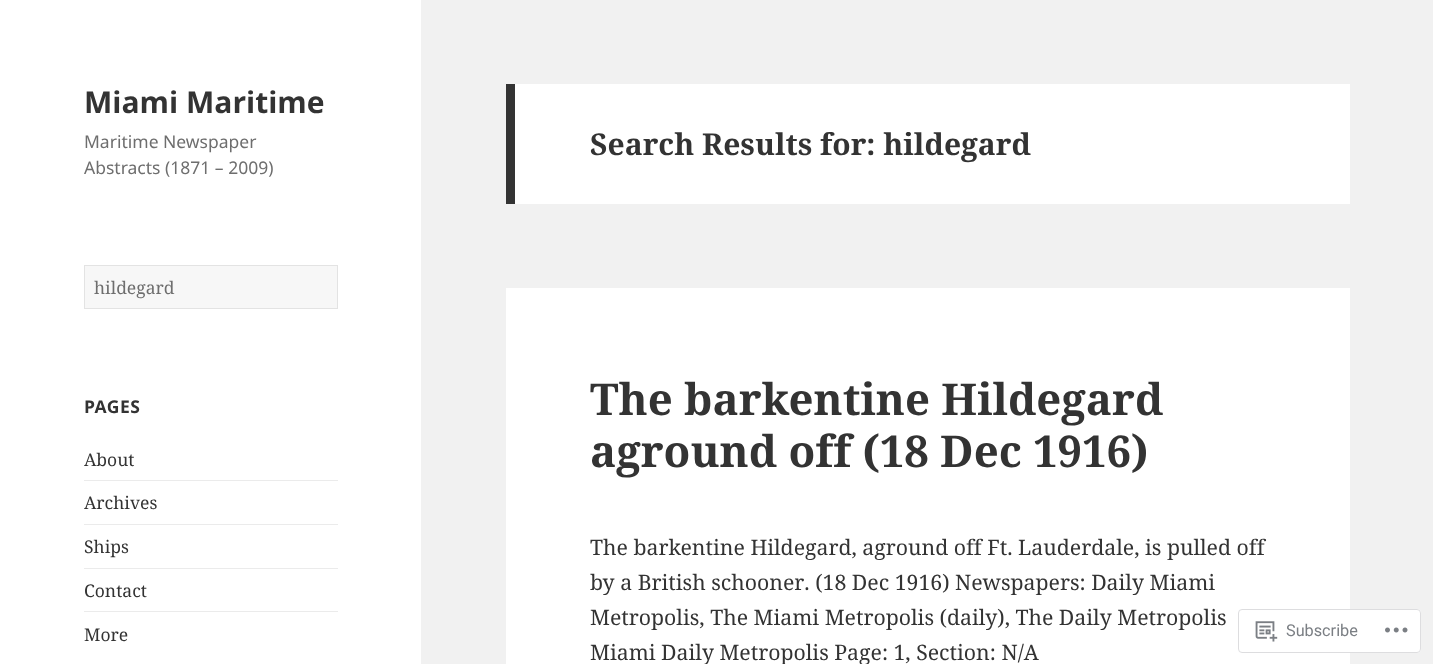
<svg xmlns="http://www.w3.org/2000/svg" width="1433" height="664">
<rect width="100%" height="100%" fill="#f1f1f1"/>
<rect width="421" height="664" fill="#fff"/>
<text x="84" y="113" style="font-family:Noto Sans;font-size:30px;font-weight:bold;fill:#333">Miami Maritime</text>
<text x="84" y="148" style="font-family:Noto Sans;font-size:17.5px;fill:#6e6e6e">Maritime Newspaper</text>
<text x="84" y="174" style="font-family:Noto Sans;font-size:17.5px;fill:#6e6e6e">Abstracts (1871 – 2009)</text>
<rect x="84.5" y="265.5" width="253" height="43" fill="#f7f7f7" stroke="#e3e3e3"/>
<text x="94" y="294" style="font-family:Noto Serif;font-size:17.5px;fill:#6e6e6e">hildegard</text>
<text x="84" y="413" style="font-family:Noto Sans;font-size:17.5px;font-weight:bold;letter-spacing:0.5px;fill:#333">PAGES</text>
<text x="84" y="466" style="font-family:Noto Serif;font-size:17.5px;fill:#333">About</text>
<rect x="84" y="480" width="254" height="1" fill="#ebebeb"/>
<text x="84" y="509" style="font-family:Noto Serif;font-size:17.5px;fill:#333">Archives</text>
<rect x="84" y="524" width="254" height="1" fill="#ebebeb"/>
<text x="84" y="553" style="font-family:Noto Serif;font-size:17.5px;fill:#333">Ships</text>
<rect x="84" y="568" width="254" height="1" fill="#ebebeb"/>
<text x="84" y="597" style="font-family:Noto Serif;font-size:17.5px;fill:#333">Contact</text>
<rect x="84" y="611" width="254" height="1" fill="#ebebeb"/>
<text x="84" y="641" style="font-family:Noto Serif;font-size:17.5px;fill:#333">More</text>
<rect x="515" y="84" width="835" height="120" fill="#fff"/>
<rect x="506" y="84" width="9" height="120" fill="#333"/>
<text x="590" y="155" style="font-family:Noto Serif;font-size:30px;font-weight:bold;fill:#333">Search Results for: hildegard</text>
<rect x="506" y="288" width="844" height="376" fill="#fff"/>
<text x="590" y="415" style="font-family:Noto Serif;font-size:43.75px;font-weight:bold;fill:#333">The barkentine Hildegard</text>
<text x="590" y="467" style="font-family:Noto Serif;font-size:43.75px;font-weight:bold;fill:#333">aground off (18 Dec 1916)</text>
<text x="590" y="555" style="font-family:Noto Serif;font-size:21.25px;fill:#333">The barkentine Hildegard, aground off Ft. Lauderdale, is pulled off</text>
<text x="590" y="590" style="font-family:Noto Serif;font-size:21.25px;fill:#333">by a British schooner. (18 Dec 1916) Newspapers: Daily Miami</text>
<text x="590" y="625" style="font-family:Noto Serif;font-size:21.25px;fill:#333">Metropolis, The Miami Metropolis (daily), The Daily Metropolis</text>
<text x="590" y="660" style="font-family:Noto Serif;font-size:21.25px;fill:#333">Miami Daily Metropolis Page: 1, Section: N/A</text>
<rect x="1238" y="609" width="183" height="44" rx="4" fill="#fffffffa"/>
<rect x="1238.5" y="609.5" width="182" height="43" rx="3.5" fill="none" stroke="#dcdcdefa"/>
<image x="1255" y="621" width="23" height="21" href="media/1.png"/>
<text x="1286" y="636" style="font-family:Roboto;font-size:16.25px;fill:#7b7f84">Subscribe</text>
<image x="1385" y="627" width="23" height="6" href="media/2.png"/>
</svg>
